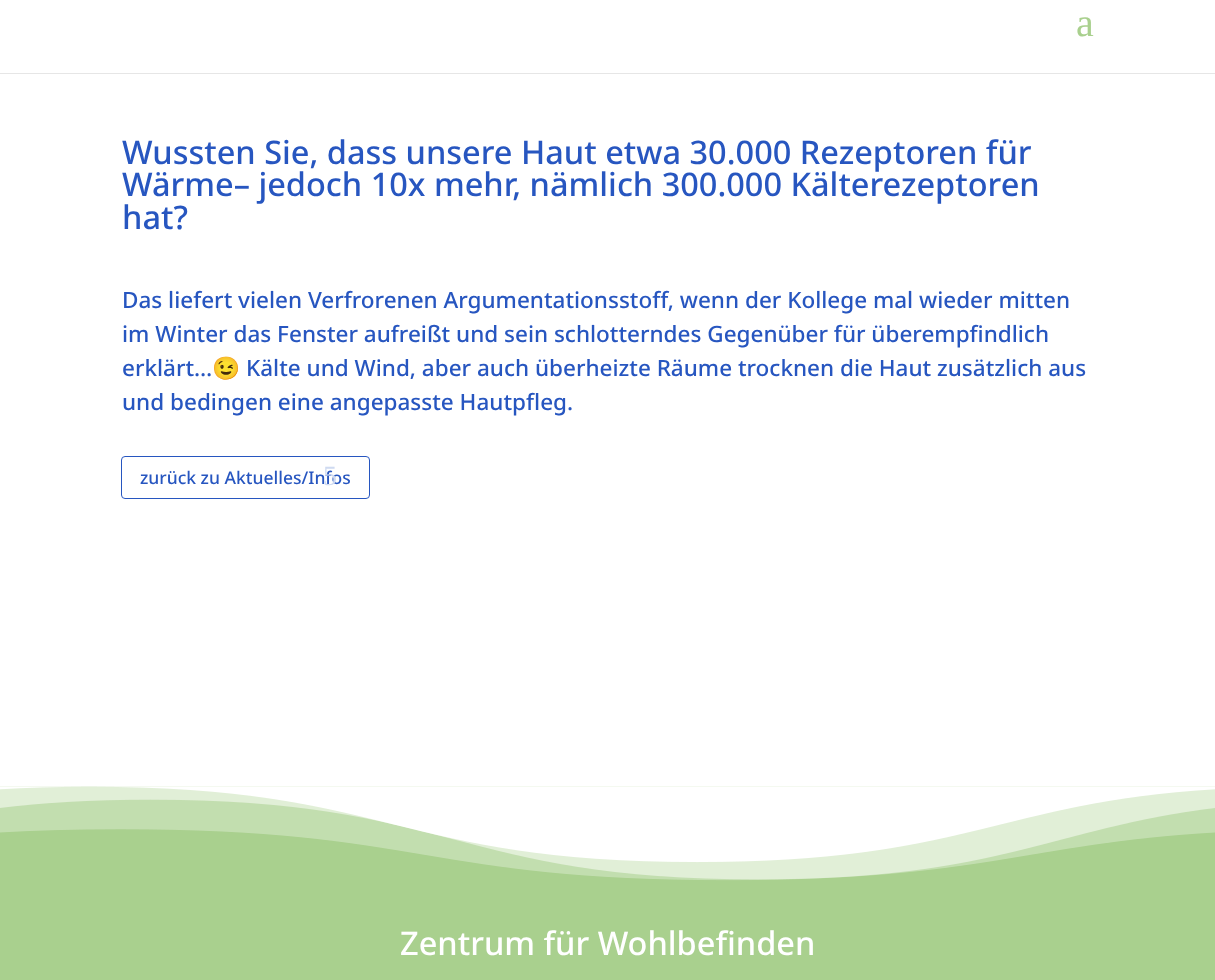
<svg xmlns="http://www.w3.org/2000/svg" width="1215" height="980">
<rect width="100%" height="100%" fill="#fff"/>
<rect y="73" width="1215" height="1" fill="#e6e6e6"/>
<text x="1076" y="36" style="font-family:Liberation Serif;font-size:40px;fill:#a9d08e">a</text>
<text x="122" y="164" style="font-family:Noto Sans;font-size:32.5px;font-weight:500;fill:#2756c0">Wussten Sie, dass unsere Haut etwa 30.000 Rezeptoren für</text>
<text x="122" y="196" style="font-family:Noto Sans;font-size:32.5px;font-weight:500;fill:#2756c0">Wärme– jedoch 10x mehr, nämlich 300.000 Kälterezeptoren</text>
<text x="122" y="229" style="font-family:Noto Sans;font-size:32.5px;font-weight:500;fill:#2756c0">hat?</text>
<text x="122" y="308" style="font-family:Noto Sans;font-size:22.5px;font-weight:500;fill:#2756c0">Das liefert vielen Verfrorenen Argumentationsstoff, wenn der Kollege mal wieder mitten</text>
<text x="122" y="342" style="font-family:Noto Sans;font-size:22.5px;font-weight:500;fill:#2756c0">im Winter das Fenster aufreißt und sein schlotterndes Gegenüber für überempfindlich</text>
<text x="122" y="376" style="font-family:Noto Sans;font-size:22.5px;font-weight:500;fill:#2756c0">erklärt…</text>
<text x="212" y="376" style="font-family:Noto Color Emoji;font-size:22.5px;fill:#2756c0">😉</text>
<text x="246" y="376" style="font-family:Noto Sans;font-size:22.5px;font-weight:500;fill:#2756c0">Kälte und Wind, aber auch überheizte Räume trocknen die Haut zusätzlich aus</text>
<text x="122" y="410" style="font-family:Noto Sans;font-size:22.5px;font-weight:500;fill:#2756c0">und bedingen eine angepasste Hautpfleg.</text>
<rect x="121.5" y="456.5" width="248" height="42" rx="3.5" fill="none" stroke="#2756c0"/>
<text x="140" y="484" style="font-family:Noto Sans;font-size:17.5px;font-weight:500;fill:#2756c0">zurück zu Aktuelles/Infos</text>
<text x="323" y="485" style="font-family:Liberation Serif;font-size:28px;fill:#cfdaf1">5</text>
<rect y="786" width="1215" height="194" fill="#a9d08e"/>
<image x="0" y="786" width="1215" height="95" href="media/1.png"/>
<text x="400" y="955" style="font-family:Noto Sans;font-size:32.5px;font-weight:500;fill:#fff">Zentrum für Wohlbefinden</text>
</svg>
